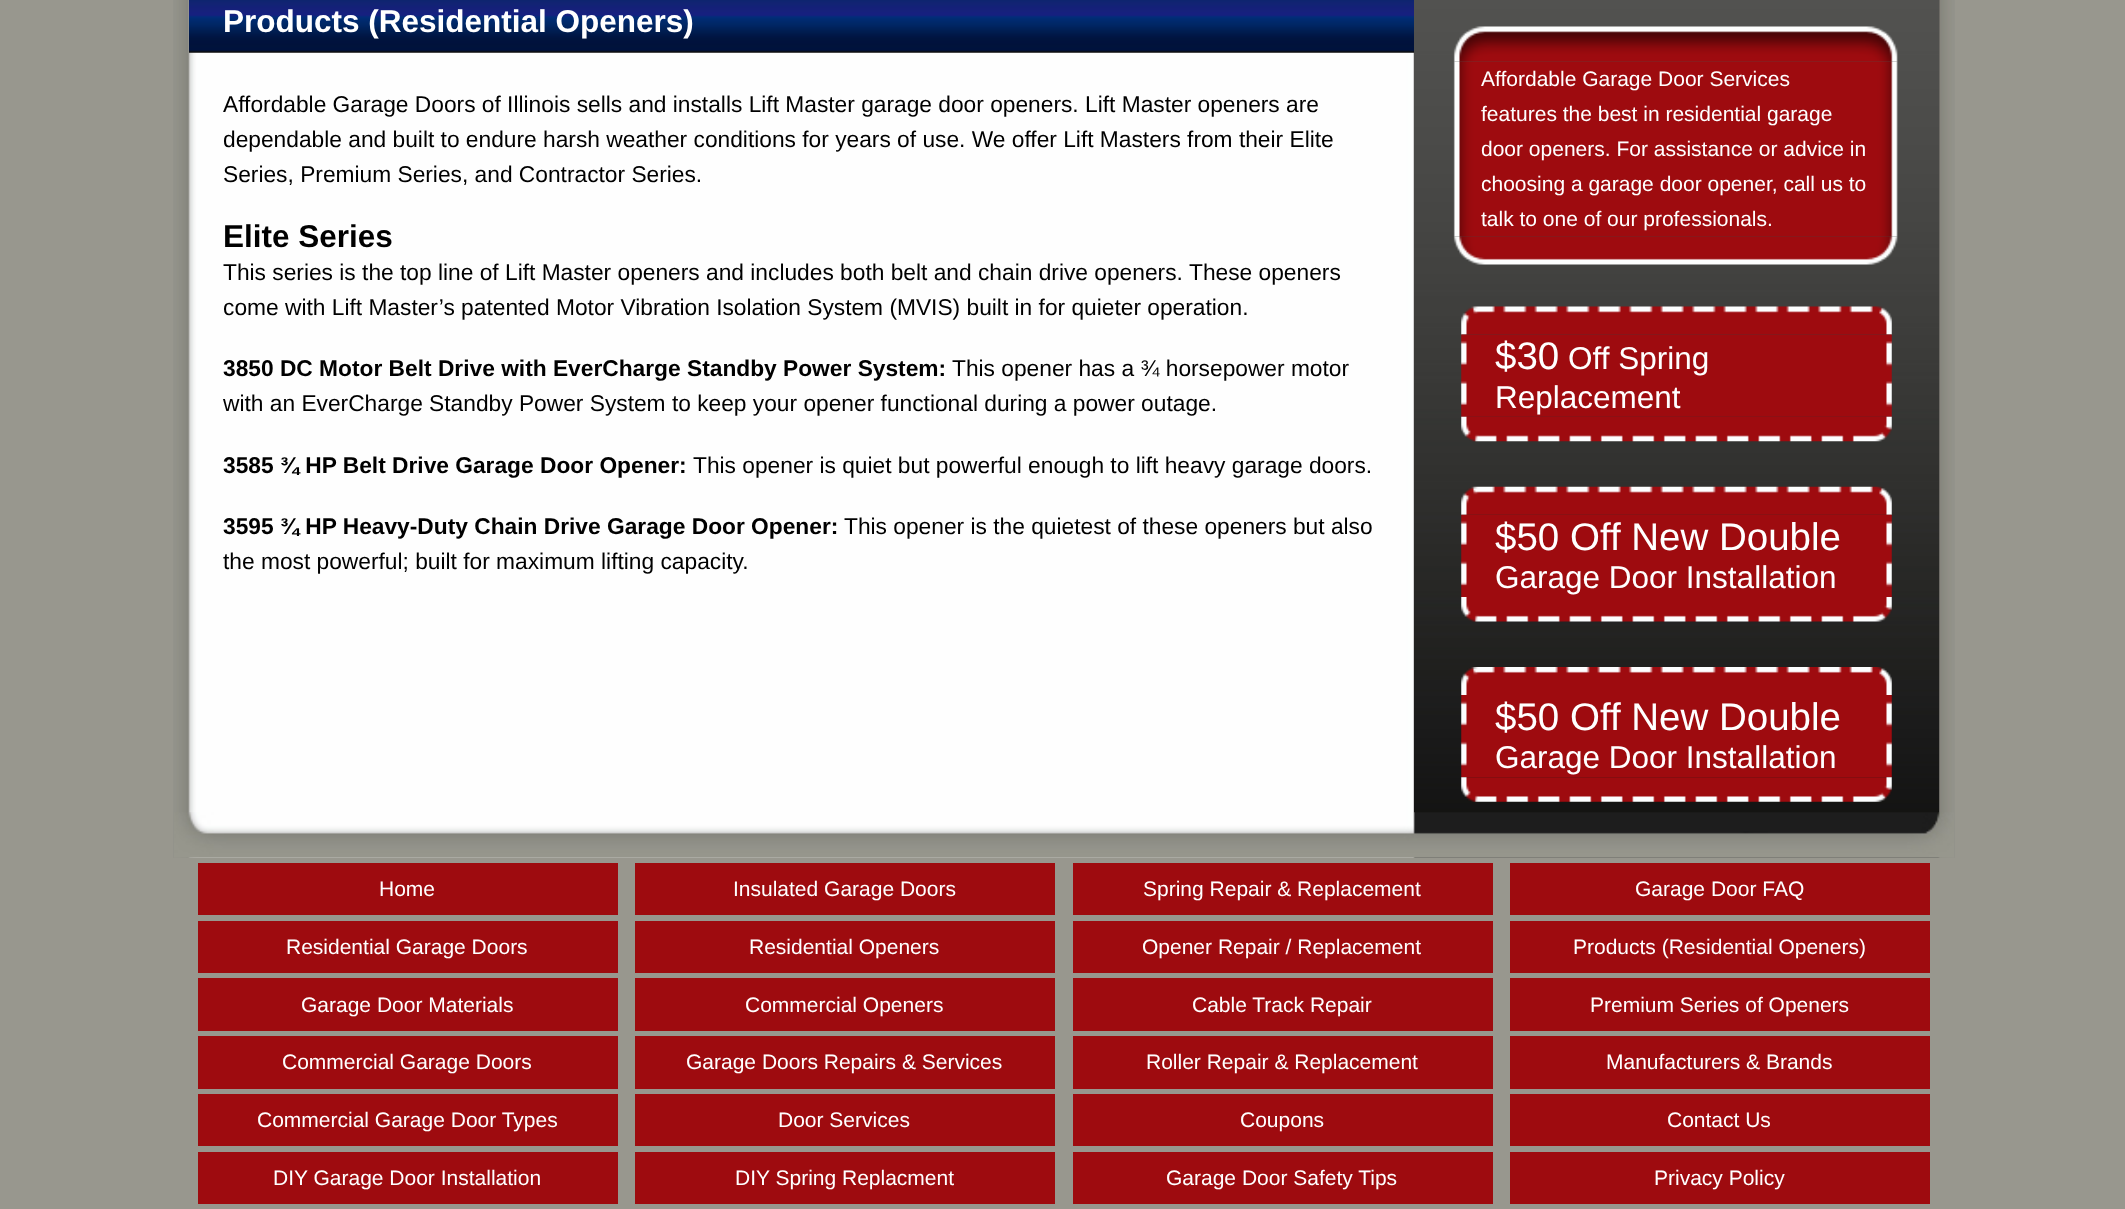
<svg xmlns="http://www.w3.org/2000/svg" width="2125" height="1209">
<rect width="100%" height="100%" fill="#98978e"/>
<image x="173" y="0" width="1782" height="858" href="media/1.png"/>
<image x="189" y="0" width="1225" height="53" href="media/2.png"/>
<text x="223" y="32" style="font-family:Liberation Sans;font-size:31.5px;font-weight:bold;fill:#fff">Products (Residential Openers)</text>
<text x="223" y="112" style="font-family:Liberation Sans;font-size:22.75px;fill:#000">Affordable Garage Doors of Illinois sells and installs Lift Master garage door openers. Lift Master openers are</text>
<text x="223" y="147" style="font-family:Liberation Sans;font-size:22.75px;fill:#000">dependable and built to endure harsh weather conditions for years of use. We offer Lift Masters from their Elite</text>
<text x="223" y="182" style="font-family:Liberation Sans;font-size:22.75px;fill:#000">Series, Premium Series, and Contractor Series.</text>
<text x="223" y="247" style="font-family:Liberation Sans;font-size:31.5px;font-weight:bold;fill:#000">Elite Series</text>
<text x="223" y="280" style="font-family:Liberation Sans;font-size:22.75px;fill:#000">This series is the top line of Lift Master openers and includes both belt and chain drive openers.</text>
<text x="1189" y="280" style="font-family:Liberation Sans;font-size:22.75px;fill:#000">These openers</text>
<text x="223" y="315" style="font-family:Liberation Sans;font-size:22.75px;fill:#000">come with Lift Master’s patented Motor Vibration Isolation System (MVIS) built in for quieter operation.</text>
<text x="223" y="376" style="font-family:Liberation Sans;font-size:22.75px;font-weight:bold;fill:#000">3850 DC Motor Belt Drive with EverCharge Standby Power System:</text>
<text x="952" y="376" style="font-family:Liberation Sans;font-size:22.75px;fill:#000">This opener has a ¾ horsepower motor</text>
<text x="223" y="411" style="font-family:Liberation Sans;font-size:22.75px;fill:#000">with an EverCharge Standby Power System to keep your opener functional during a power outage.</text>
<text x="223" y="473" style="font-family:Liberation Sans;font-size:22.75px;font-weight:bold;fill:#000">3585 ¾ HP Belt Drive Garage Door Opener:</text>
<text x="693" y="473" style="font-family:Liberation Sans;font-size:22.75px;fill:#000">This opener is quiet but powerful enough to lift heavy garage doors.</text>
<text x="223" y="534" style="font-family:Liberation Sans;font-size:22.75px;font-weight:bold;fill:#000">3595 ¾ HP Heavy-Duty Chain Drive Garage Door Opener:</text>
<text x="844" y="534" style="font-family:Liberation Sans;font-size:22.75px;fill:#000">This opener is the quietest of these openers but also</text>
<text x="223" y="569" style="font-family:Liberation Sans;font-size:22.75px;fill:#000">the most powerful; built for maximum lifting capacity.</text>
<image x="174" y="812" width="1780" height="46" href="media/16.png"/>
<image x="1414" y="0" width="525" height="813" href="media/3.png"/>
<image x="1453" y="26" width="445" height="36" href="media/4.png"/>
<image x="1453" y="61" width="445" height="176" href="media/5.png"/>
<text x="1481" y="86" style="font-family:Liberation Sans;font-size:21px;fill:#fff">Affordable Garage Door Services</text>
<text x="1481" y="121" style="font-family:Liberation Sans;font-size:21px;fill:#fff">features the best in residential garage</text>
<text x="1481" y="156" style="font-family:Liberation Sans;font-size:21px;fill:#fff">door openers. For assistance or advice in</text>
<text x="1481" y="191" style="font-family:Liberation Sans;font-size:21px;fill:#fff">choosing a garage door opener, call us to</text>
<text x="1481" y="226" style="font-family:Liberation Sans;font-size:21px;fill:#fff">talk to one of our professionals.</text>
<image x="1453" y="236" width="445" height="29" href="media/6.png"/>
<image x="1461" y="306" width="431" height="29" href="media/7.png"/>
<image x="1461" y="334" width="431" height="83" href="media/8.png"/>
<text x="1495" y="369" style="font-family:Liberation Sans;font-size:38.5px;fill:#fff">$30</text>
<text x="1568" y="369" style="font-family:Liberation Sans;font-size:31.5px;fill:#fff">Off Spring</text>
<text x="1495" y="408" style="font-family:Liberation Sans;font-size:31.5px;fill:#fff">Replacement</text>
<image x="1461" y="416" width="431" height="26" href="media/9.png"/>
<image x="1461" y="486" width="431" height="29" href="media/10.png"/>
<image x="1461" y="514" width="431" height="83" href="media/11.png"/>
<text x="1495" y="550" style="font-family:Liberation Sans;font-size:38.5px;fill:#fff">$50 Off New Double</text>
<text x="1495" y="588" style="font-family:Liberation Sans;font-size:31.5px;fill:#fff">Garage Door Installation</text>
<image x="1461" y="597" width="431" height="25" href="media/12.png"/>
<image x="1461" y="667" width="431" height="28" href="media/13.png"/>
<image x="1461" y="695" width="431" height="83" href="media/14.png"/>
<text x="1495" y="730" style="font-family:Liberation Sans;font-size:38.5px;fill:#fff">$50 Off New Double</text>
<text x="1495" y="768" style="font-family:Liberation Sans;font-size:31.5px;fill:#fff">Garage Door Installation</text>
<image x="1461" y="777" width="431" height="25" href="media/15.png"/>
<rect x="198" y="863" width="420" height="52" fill="#9e0b0f"/>
<text x="379" y="896" style="font-family:Liberation Sans;font-size:21px;fill:#fff">Home</text>
<rect x="198" y="921" width="420" height="52" fill="#9e0b0f"/>
<text x="286" y="954" style="font-family:Liberation Sans;font-size:21px;fill:#fff">Residential Garage Doors</text>
<rect x="198" y="978" width="420" height="53" fill="#9e0b0f"/>
<text x="301" y="1012" style="font-family:Liberation Sans;font-size:21px;fill:#fff">Garage Door Materials</text>
<rect x="198" y="1036" width="420" height="53" fill="#9e0b0f"/>
<text x="282" y="1069" style="font-family:Liberation Sans;font-size:21px;fill:#fff">Commercial Garage Doors</text>
<rect x="198" y="1094" width="420" height="52" fill="#9e0b0f"/>
<text x="257" y="1127" style="font-family:Liberation Sans;font-size:21px;fill:#fff">Commercial Garage Door Types</text>
<rect x="198" y="1152" width="420" height="52" fill="#9e0b0f"/>
<text x="273" y="1185" style="font-family:Liberation Sans;font-size:21px;fill:#fff">DIY Garage Door Installation</text>
<rect x="635" y="863" width="420" height="52" fill="#9e0b0f"/>
<text x="733" y="896" style="font-family:Liberation Sans;font-size:21px;fill:#fff">Insulated Garage Doors</text>
<rect x="635" y="921" width="420" height="52" fill="#9e0b0f"/>
<text x="749" y="954" style="font-family:Liberation Sans;font-size:21px;fill:#fff">Residential Openers</text>
<rect x="635" y="978" width="420" height="53" fill="#9e0b0f"/>
<text x="745" y="1012" style="font-family:Liberation Sans;font-size:21px;fill:#fff">Commercial Openers</text>
<rect x="635" y="1036" width="420" height="53" fill="#9e0b0f"/>
<text x="686" y="1069" style="font-family:Liberation Sans;font-size:21px;fill:#fff">Garage Doors Repairs &amp; Services</text>
<rect x="635" y="1094" width="420" height="52" fill="#9e0b0f"/>
<text x="778" y="1127" style="font-family:Liberation Sans;font-size:21px;fill:#fff">Door Services</text>
<rect x="635" y="1152" width="420" height="52" fill="#9e0b0f"/>
<text x="735" y="1185" style="font-family:Liberation Sans;font-size:21px;fill:#fff">DIY Spring Replacment</text>
<rect x="1073" y="863" width="420" height="52" fill="#9e0b0f"/>
<text x="1143" y="896" style="font-family:Liberation Sans;font-size:21px;fill:#fff">Spring Repair &amp; Replacement</text>
<rect x="1073" y="921" width="420" height="52" fill="#9e0b0f"/>
<text x="1142" y="954" style="font-family:Liberation Sans;font-size:21px;fill:#fff">Opener Repair / Replacement</text>
<rect x="1073" y="978" width="420" height="53" fill="#9e0b0f"/>
<text x="1192" y="1012" style="font-family:Liberation Sans;font-size:21px;fill:#fff">Cable Track Repair</text>
<rect x="1073" y="1036" width="420" height="53" fill="#9e0b0f"/>
<text x="1146" y="1069" style="font-family:Liberation Sans;font-size:21px;fill:#fff">Roller Repair &amp; Replacement</text>
<rect x="1073" y="1094" width="420" height="52" fill="#9e0b0f"/>
<text x="1240" y="1127" style="font-family:Liberation Sans;font-size:21px;fill:#fff">Coupons</text>
<rect x="1073" y="1152" width="420" height="52" fill="#9e0b0f"/>
<text x="1166" y="1185" style="font-family:Liberation Sans;font-size:21px;fill:#fff">Garage Door Safety Tips</text>
<rect x="1510" y="863" width="420" height="52" fill="#9e0b0f"/>
<text x="1635" y="896" style="font-family:Liberation Sans;font-size:21px;fill:#fff">Garage Door FAQ</text>
<rect x="1510" y="921" width="420" height="52" fill="#9e0b0f"/>
<text x="1573" y="954" style="font-family:Liberation Sans;font-size:21px;fill:#fff">Products (Residential Openers)</text>
<rect x="1510" y="978" width="420" height="53" fill="#9e0b0f"/>
<text x="1590" y="1012" style="font-family:Liberation Sans;font-size:21px;fill:#fff">Premium Series of Openers</text>
<rect x="1510" y="1036" width="420" height="53" fill="#9e0b0f"/>
<text x="1606" y="1069" style="font-family:Liberation Sans;font-size:21px;fill:#fff">Manufacturers &amp; Brands</text>
<rect x="1510" y="1094" width="420" height="52" fill="#9e0b0f"/>
<text x="1667" y="1127" style="font-family:Liberation Sans;font-size:21px;fill:#fff">Contact Us</text>
<rect x="1510" y="1152" width="420" height="52" fill="#9e0b0f"/>
<text x="1654" y="1185" style="font-family:Liberation Sans;font-size:21px;fill:#fff">Privacy Policy</text>
</svg>
